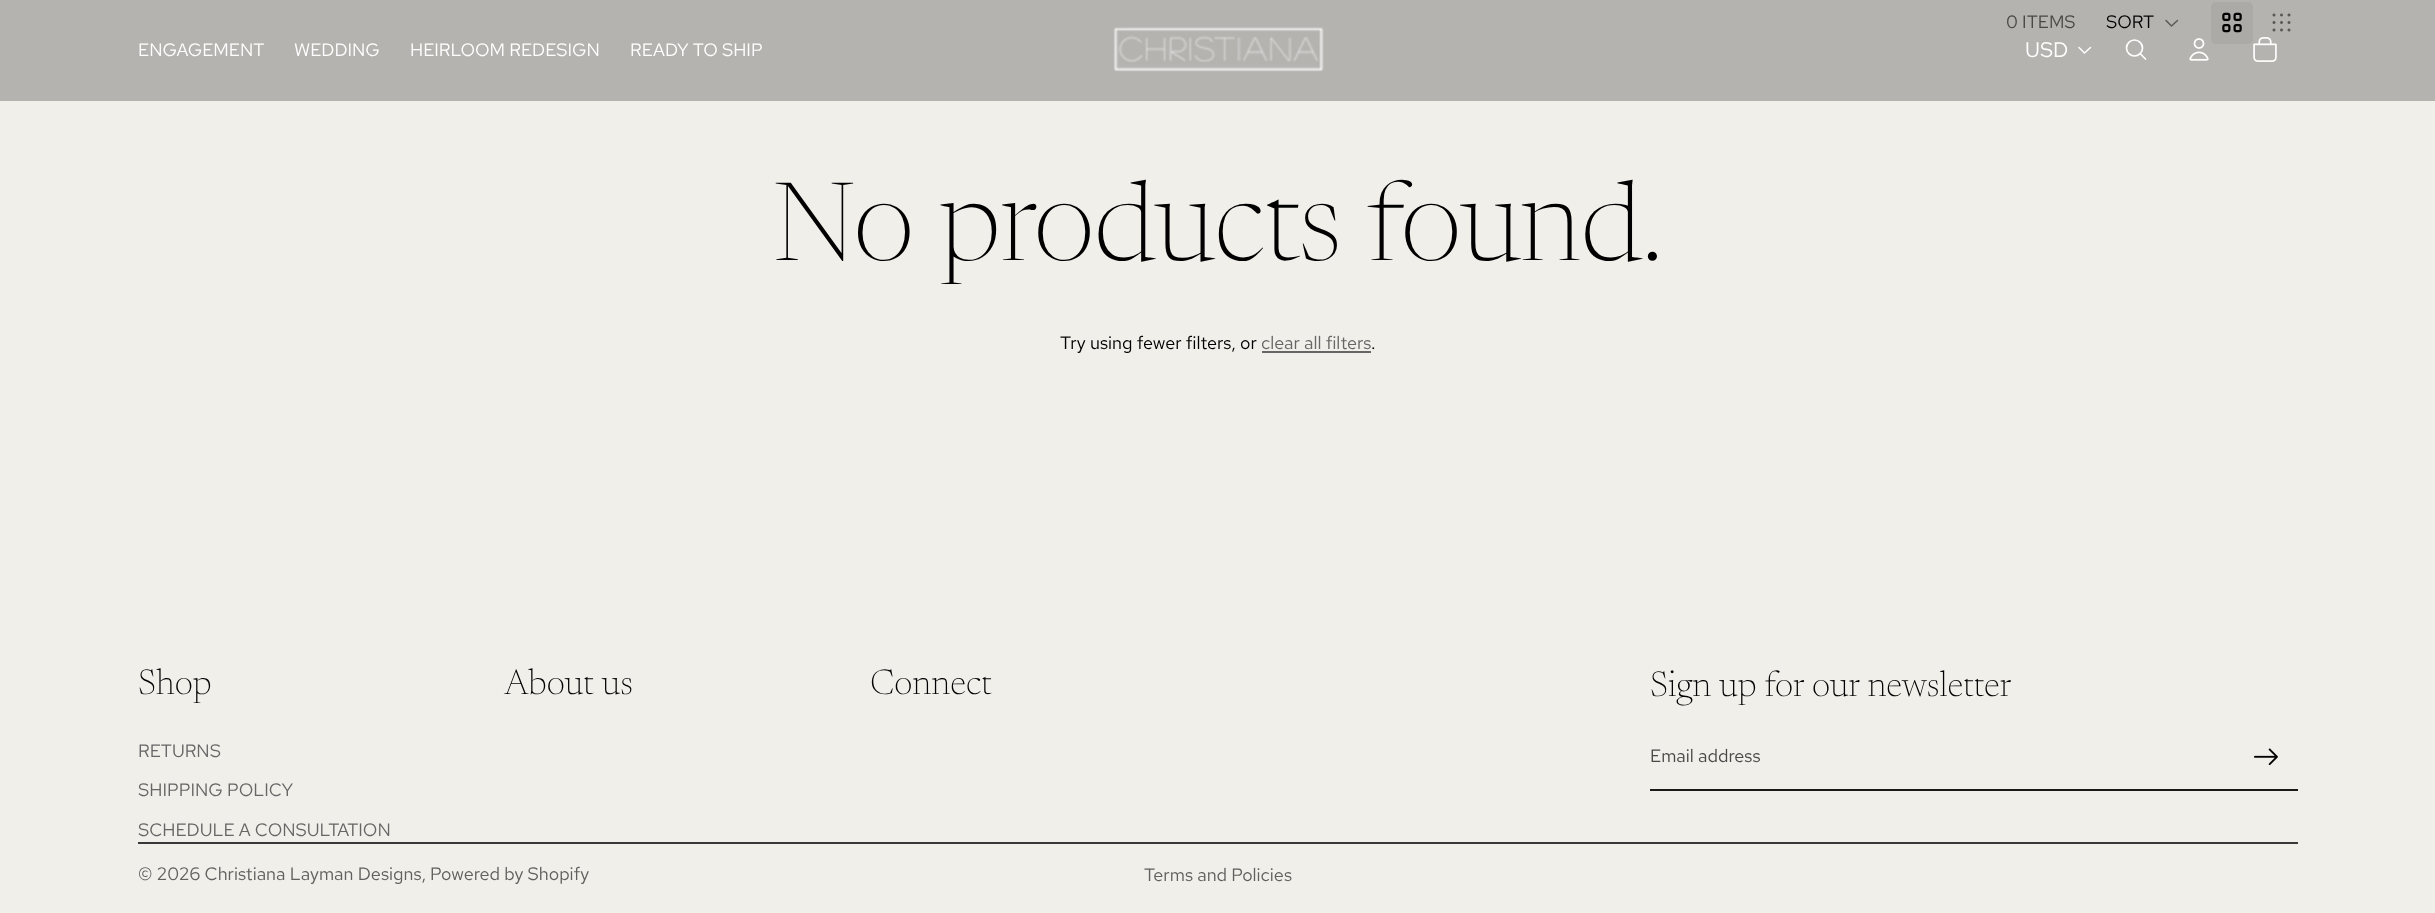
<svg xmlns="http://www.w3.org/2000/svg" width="2435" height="913">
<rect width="100%" height="100%" fill="#f1efea"/>
<rect width="2435" height="101" fill="#b5b3b0"/>
<text x="2006" y="28" style="font-family:Red Hat Text;font-size:18px;fill:#484846">0 ITEMS</text>
<text x="2106" y="28" style="font-family:Red Hat Text;font-size:18px;fill:#000">SORT</text>
<path d="M2177.5 20.5l-6 5.5l-5.5-5.5" fill="none" stroke="#5b5a58" stroke-width="1.5" stroke-linecap="round" stroke-linejoin="round"/>
<rect x="2211" y="2" width="42" height="42" rx="5" fill="#acaaa7"/>
<image x="2222" y="12" width="20" height="21" href="media/1.png"/>
<image x="2272" y="13" width="19" height="19" href="media/2.png"/>
<text x="773" y="260" style="font-family:Newsreader;font-size:108px;font-weight:200;fill:#000">No products found.</text>
<text x="1060" y="349" style="font-family:Red Hat Text;font-size:18px;fill:#000">Try using fewer filters, or</text>
<text x="1261" y="349" style="font-family:Red Hat Text;font-size:18px;fill:#666">clear all filters</text>
<rect x="1262" y="351" width="109" height="2" fill="#666"/>
<text x="1371" y="349" style="font-family:Red Hat Text;font-size:18px;fill:#000">.</text>
<text x="138" y="56" style="font-family:Red Hat Text;font-size:18px;fill:#fff">ENGAGEMENT</text>
<text x="294" y="56" style="font-family:Red Hat Text;font-size:18px;fill:#fff">WEDDING</text>
<text x="410" y="56" style="font-family:Red Hat Text;font-size:18px;fill:#fff">HEIRLOOM REDESIGN</text>
<text x="630" y="56" style="font-family:Red Hat Text;font-size:18px;fill:#fff">READY TO SHIP</text>
<image x="1113" y="27" width="211" height="45" href="media/3.png"/>
<text x="2025" y="57" style="font-family:Red Hat Text;font-size:21px;fill:#fff">USD</text>
<path d="M2090.5 47.5l-6 5.5l-5.5-5.5" fill="none" stroke="#fff" stroke-width="1.5" stroke-linecap="round" stroke-linejoin="round"/>
<circle cx="2134.5" cy="48" r="8" fill="none" stroke="#fff" stroke-width="1.7"/>
<path d="M2140 53.5l5.5 5.5" fill="none" stroke="#fff" stroke-width="1.7" stroke-linecap="round" stroke-linejoin="round"/>
<image x="2189" y="38" width="20" height="23" href="media/4.png"/>
<image x="2253" y="37" width="24" height="25" href="media/5.png"/>
<text x="138" y="694" style="font-family:'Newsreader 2';font-size:36px;font-weight:200;fill:#000">Shop</text>
<text x="138" y="757" style="font-family:Red Hat Text;font-size:18px;fill:#666">RETURNS</text>
<text x="138" y="796" style="font-family:Red Hat Text;font-size:18px;fill:#666">SHIPPING POLICY</text>
<text x="138" y="836" style="font-family:Red Hat Text;font-size:18px;fill:#666">SCHEDULE A CONSULTATION</text>
<text x="504" y="694" style="font-family:'Newsreader 2';font-size:36px;font-weight:200;fill:#000">About us</text>
<text x="870" y="694" style="font-family:'Newsreader 2';font-size:36px;font-weight:200;fill:#000">Connect</text>
<text x="1650" y="696" style="font-family:'Newsreader 2';font-size:36px;font-weight:200;fill:#000">Sign up for our newsletter</text>
<rect x="1650" y="789" width="648" height="2" fill="#1a1a1a"/>
<text x="1650" y="762" style="font-family:Red Hat Text;font-size:18px;fill:#484846">Email address</text>
<image x="2253" y="748" width="25" height="18" href="media/6.png"/>
<rect x="138" y="842" width="2160" height="2" fill="#383838"/>
<text x="138" y="880" style="font-family:Red Hat Text;font-size:18px;fill:#60605e">© 2026 Christiana Layman Designs, Powered by Shopify</text>
<text x="1144" y="881" style="font-family:Red Hat Text;font-size:18px;fill:#60605e">Terms and Policies</text>
</svg>
